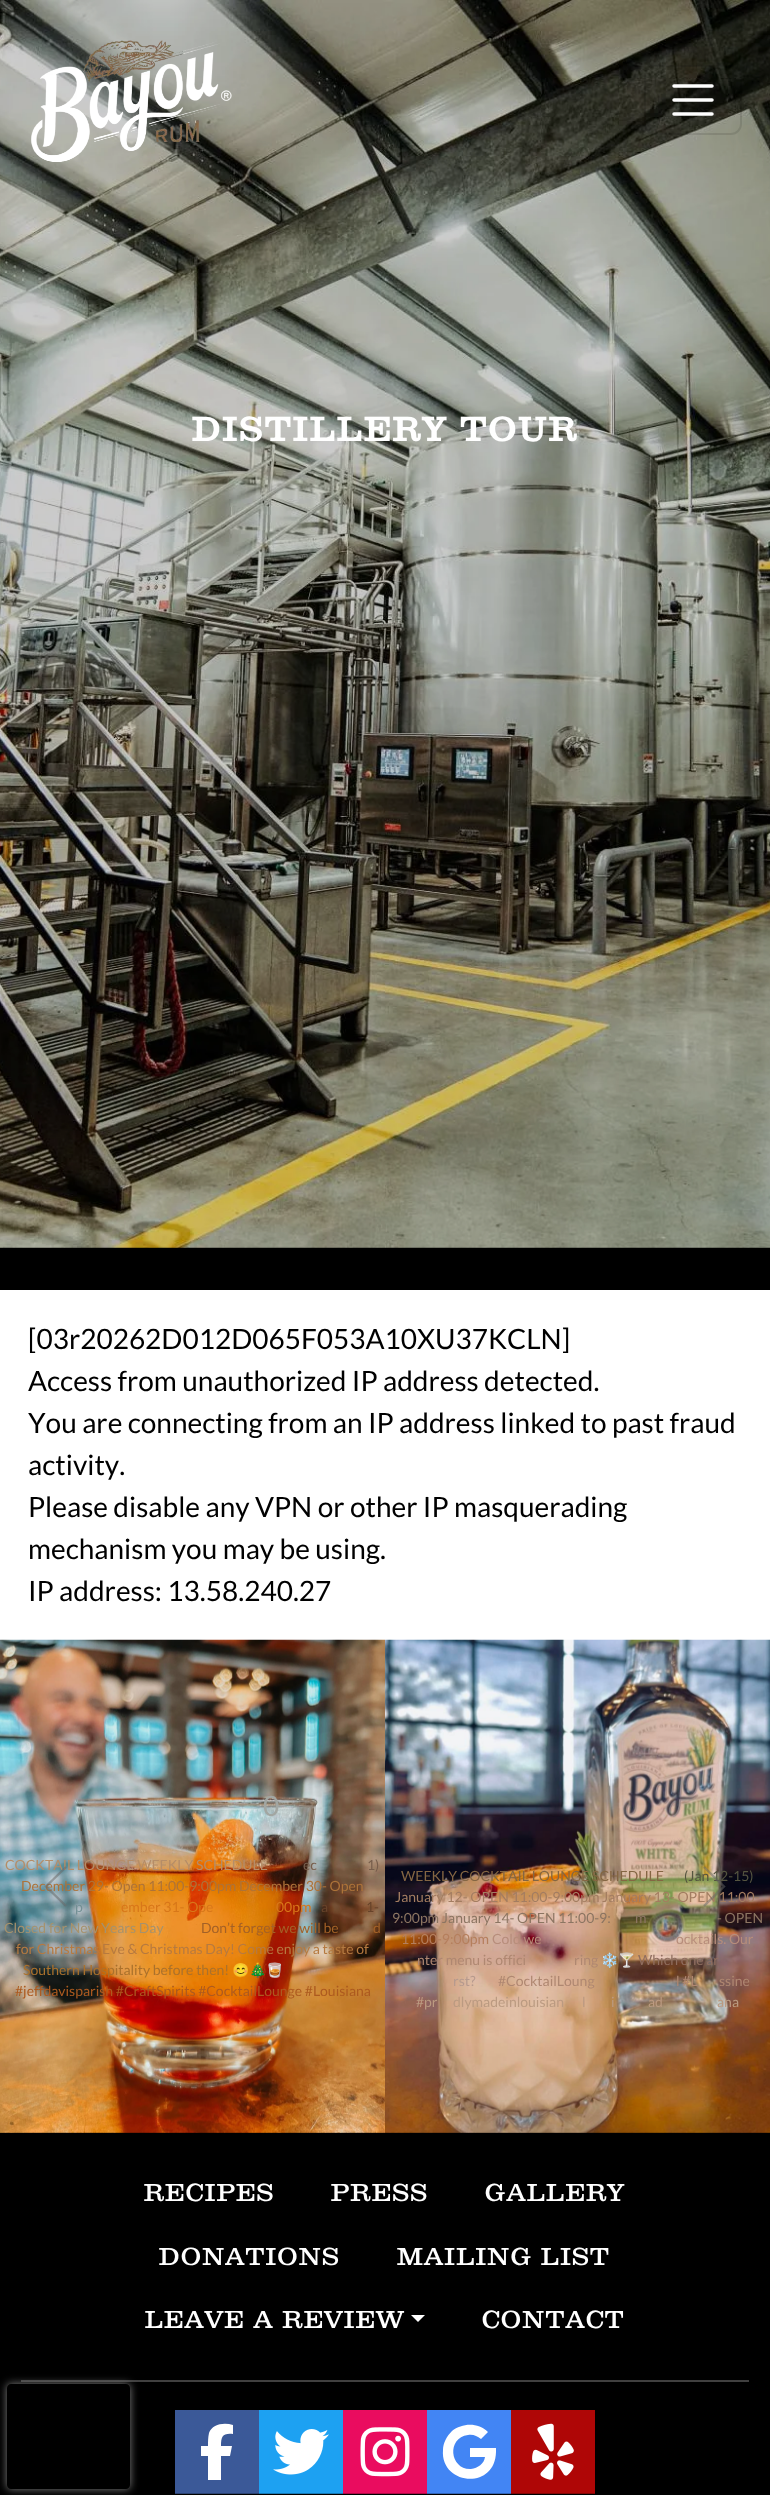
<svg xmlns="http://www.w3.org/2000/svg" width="770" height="2495">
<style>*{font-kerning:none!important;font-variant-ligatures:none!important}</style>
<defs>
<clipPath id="clip1"><path d="M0 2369h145v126h-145zm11 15h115c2 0 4 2 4 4v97c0 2-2 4-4 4h-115c-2 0-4-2-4-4v-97c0-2 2-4 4-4z" clip-rule="evenodd"/></clipPath>
</defs>
<rect width="100%" height="100%" fill="#000"/>
<image x="0" y="0" width="770" height="1248" href="media/2.png"/>
<image x="31" y="40" width="201" height="122" href="media/1.png"/>
<rect x="645" y="66" width="96" height="68" rx="10" fill="none" stroke="#0000001a" stroke-width="2"/>
<path d="M674 86h38m-38 14h38m-38 14h38" fill="none" stroke="#fff" stroke-width="3.5" stroke-linecap="round"/>
<text x="192" y="441" style="font-family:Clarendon;font-size:32.25px;font-weight:bold;letter-spacing:3.25px;fill:#fff">DISTILLERY TOUR</text>
<rect y="1290" width="770" height="350" fill="#fff"/>
<text x="28" y="1349" style="font-family:Lato;font-size:28px;fill:#000">[03r20262D012D065F053A10XU37KCLN]</text>
<text x="28" y="1391" style="font-family:Lato;font-size:28px;fill:#000">Access from unauthorized IP address detected.</text>
<text x="28" y="1433" style="font-family:Lato;font-size:28px;fill:#000">You are connecting from an IP address linked to past fraud</text>
<text x="28" y="1475" style="font-family:Lato;font-size:28px;fill:#000">activity.</text>
<text x="28" y="1517" style="font-family:Lato;font-size:28px;fill:#000">Please disable any VPN or other IP masquerading</text>
<text x="28" y="1559" style="font-family:Lato;font-size:28px;fill:#000">mechanism you may be using.</text>
<text x="28" y="1601" style="font-family:Lato;font-size:28px;fill:#000">IP address: 13.58.240.27</text>
<image x="0" y="1639" width="385" height="494" href="media/3.png"/>
<text x="263" y="1816" style="font-family:Lato;font-size:28px;fill:#a2a6a2">0</text>
<text x="5" y="1870" style="font-family:Lato;font-size:14px;fill:#b58d68">COCKTAIL LOUNGE WEEKLY</text>
<text x="196" y="1870" style="font-family:Lato;font-size:14px;fill:#b58d68">SCHEDULE</text>
<text x="303" y="1870" style="font-family:Lato;font-size:14px;fill:#775e4c">ec</text>
<text x="367" y="1870" style="font-family:Lato;font-size:14px;fill:#775e4c">1)</text>
<text x="21" y="1891" style="font-family:Lato;font-size:14px;fill:#ad7339">December 29- Open 11:00-9:00pm December 30- Open</text>
<text x="75" y="1912" style="font-family:Lato;font-size:14px;fill:#739095">p</text>
<text x="121" y="1912" style="font-family:Lato;font-size:14px;fill:#d87719">ember 31- Ope</text>
<text x="276" y="1912" style="font-family:Lato;font-size:14px;fill:#d87719">00pm</text>
<text x="321" y="1912" style="font-family:Lato;font-size:14px;fill:#67432a">a</text>
<text x="366" y="1912" style="font-family:Lato;font-size:14px;fill:#67432a">1-</text>
<text x="4" y="1933" style="font-family:Lato;font-size:14px;fill:#a6926d">Closed for New Years Day</text>
<text x="201" y="1933" style="font-family:Lato;font-size:14px;fill:#a36127">Don’t forget we will be</text>
<text x="373" y="1933" style="font-family:Lato;font-size:14px;fill:#a36127">d</text>
<text x="16" y="1954" style="font-family:Lato;font-size:14px;fill:#b67a40">for Christmas Eve &amp; Christmas Day! Come enjoy a taste of</text>
<text x="23" y="1975" style="font-family:Lato;font-size:14px;fill:#aa712c">Southern Hospitality before then!</text>
<text x="232" y="1975" style="font-family:Noto Color Emoji;font-size:14px;fill:#c24e02">😊🎄🥃</text>
<text x="15" y="1996" style="font-family:Lato;font-size:14px;fill:#ad5a1f">#jeffdavisparish #CraftSpirits #CocktailLounge #Louisiana</text>
<image x="385" y="1639" width="385" height="494" href="media/4.png"/>
<text x="401" y="1881" style="font-family:Lato;font-size:14px;fill:#846643">WEEKLY COCKTAIL LOUNGE</text>
<text x="592" y="1881" style="font-family:Lato;font-size:14px;fill:#846643">SCHEDULE</text>
<text x="684" y="1881" style="font-family:Lato;font-size:14px;fill:#555540">(Jan 12-15)</text>
<text x="395" y="1902" style="font-family:Lato;font-size:14px;fill:#a37d61">January 12- OPEN 11:00-9:00pm January 13- OPEN 11:00-</text>
<text x="392" y="1923" style="font-family:Lato;font-size:14px;fill:#8c7562">9:00pm January 14- OPEN 11:00-9:</text>
<text x="635" y="1923" style="font-family:Lato;font-size:14px;fill:#8c7562">m</text>
<text x="717" y="1923" style="font-family:Lato;font-size:14px;fill:#8c7562">- OPEN</text>
<text x="401" y="1944" style="font-family:Lato;font-size:14px;fill:#b57f5d">11:00-9:00pm</text>
<text x="492" y="1944" style="font-family:Lato;font-size:14px;fill:#b78d7b">Cold we</text>
<text x="676" y="1944" style="font-family:Lato;font-size:14px;fill:#b78d7b">ocktails. Our</text>
<text x="417" y="1965" style="font-family:Lato;font-size:14px;fill:#af8771">nter menu is offici</text>
<text x="574" y="1965" style="font-family:Lato;font-size:14px;fill:#af8771">ring</text>
<text x="601" y="1965" style="font-family:Noto Color Emoji;font-size:14px;fill:#a57952">❄️🍸</text>
<text x="638" y="1965" style="font-family:Lato;font-size:14px;fill:#906e5f">Which one ar</text>
<text x="453" y="1986" style="font-family:Lato;font-size:14px;fill:#b69a8e">rst?</text>
<text x="498" y="1986" style="font-family:Lato;font-size:14px;fill:#af8771">#CocktailLoung</text>
<text x="676" y="1986" style="font-family:Lato;font-size:14px;fill:#af8771">l #L</text>
<text x="719" y="1986" style="font-family:Lato;font-size:14px;fill:#af8771">ssine</text>
<text x="416" y="2007" style="font-family:Lato;font-size:14px;fill:#bb9a81">#pr</text>
<text x="453" y="2007" style="font-family:Lato;font-size:14px;fill:#bb9a81">dlymadeinlouisian</text>
<text x="582" y="2007" style="font-family:Lato;font-size:14px;fill:#bb9a81">l</text>
<text x="611" y="2007" style="font-family:Lato;font-size:14px;fill:#bb9a81">i</text>
<text x="648" y="2007" style="font-family:Lato;font-size:14px;fill:#bb9a81">ad</text>
<text x="717" y="2007" style="font-family:Lato;font-size:14px;fill:#bb9a81">ana</text>
<path d="M66 1867l-20 19.5l20 19.5" fill="none" stroke="#66666680" stroke-width="2.4"/>
<path d="M704 1906l20-19.5l-20-19.5" fill="none" stroke="#66666680" stroke-width="2.4"/>
<text x="144" y="2201" style="font-family:Clarendon;font-size:23.75px;letter-spacing:1.75px;fill:#fff">RECIPES</text>
<text x="331" y="2201" style="font-family:Clarendon;font-size:23.75px;letter-spacing:1.75px;fill:#fff">PRESS</text>
<text x="485" y="2201" style="font-family:Clarendon;font-size:23.75px;letter-spacing:1.75px;fill:#fff">GALLERY</text>
<text x="159" y="2265" style="font-family:Clarendon;font-size:23.75px;letter-spacing:1.75px;fill:#fff">DONATIONS</text>
<text x="397" y="2265" style="font-family:Clarendon;font-size:23.75px;letter-spacing:1.75px;fill:#fff">MAILING LIST</text>
<text x="145" y="2328" style="font-family:Clarendon;font-size:23.75px;letter-spacing:1.75px;fill:#fff">LEAVE A REVIEW</text>
<path d="M411 2315h14l-7 7z" fill="#fff"/>
<text x="482" y="2328" style="font-family:Clarendon;font-size:23.75px;letter-spacing:1.75px;fill:#fff">CONTACT</text>
<rect x="21" y="2380" width="728" height="2" fill="#404040"/>
<rect x="175" y="2410" width="84" height="83" fill="#3b5998"/>
<rect x="175" y="2493" width="84" height="1" fill="#2c4372"/>
<path d="M208 2456v24v-24v24h13v-24h9l2-10h-11c0-10 2-13 12-12v-9c-9-3-21-1-24 8c-1 4-1 9-1 13h-7v10z" fill="#fff"/>
<rect x="259" y="2410" width="84" height="83" fill="#1da1f2"/>
<rect x="259" y="2493" width="84" height="1" fill="#1679b6"/>
<image x="273" y="2429" width="56" height="46" href="media/5.png"/>
<rect x="343" y="2410" width="84" height="83" fill="#ea0c5f"/>
<rect x="343" y="2493" width="84" height="1" fill="#b00947"/>
<image x="360" y="2427" width="50" height="50" href="media/6.png"/>
<rect x="427" y="2410" width="84" height="83" fill="#4285f4"/>
<rect x="427" y="2493" width="84" height="1" fill="#3264b7"/>
<path d="M496 2452c-1 39-56 33-53-2c0-7 4-14 9-19c10-8 26-9 36 1l-7 7c-4-3-8-5-13-4c-22 3-18 35 3 34c7-1 13-5 14-12h-15v-9h26z" fill="#fff"/>
<rect x="511" y="2410" width="84" height="83" fill="#af0606"/>
<rect x="511" y="2493" width="84" height="1" fill="#830505"/>
<image x="532" y="2423" width="42" height="57" href="media/7.png"/>
<g clip-path="url(#clip1)">
<rect x="7" y="2384" width="123" height="105" rx="4" fill="#808080" filter="blur(4.5px)"/>
</g>
</svg>
